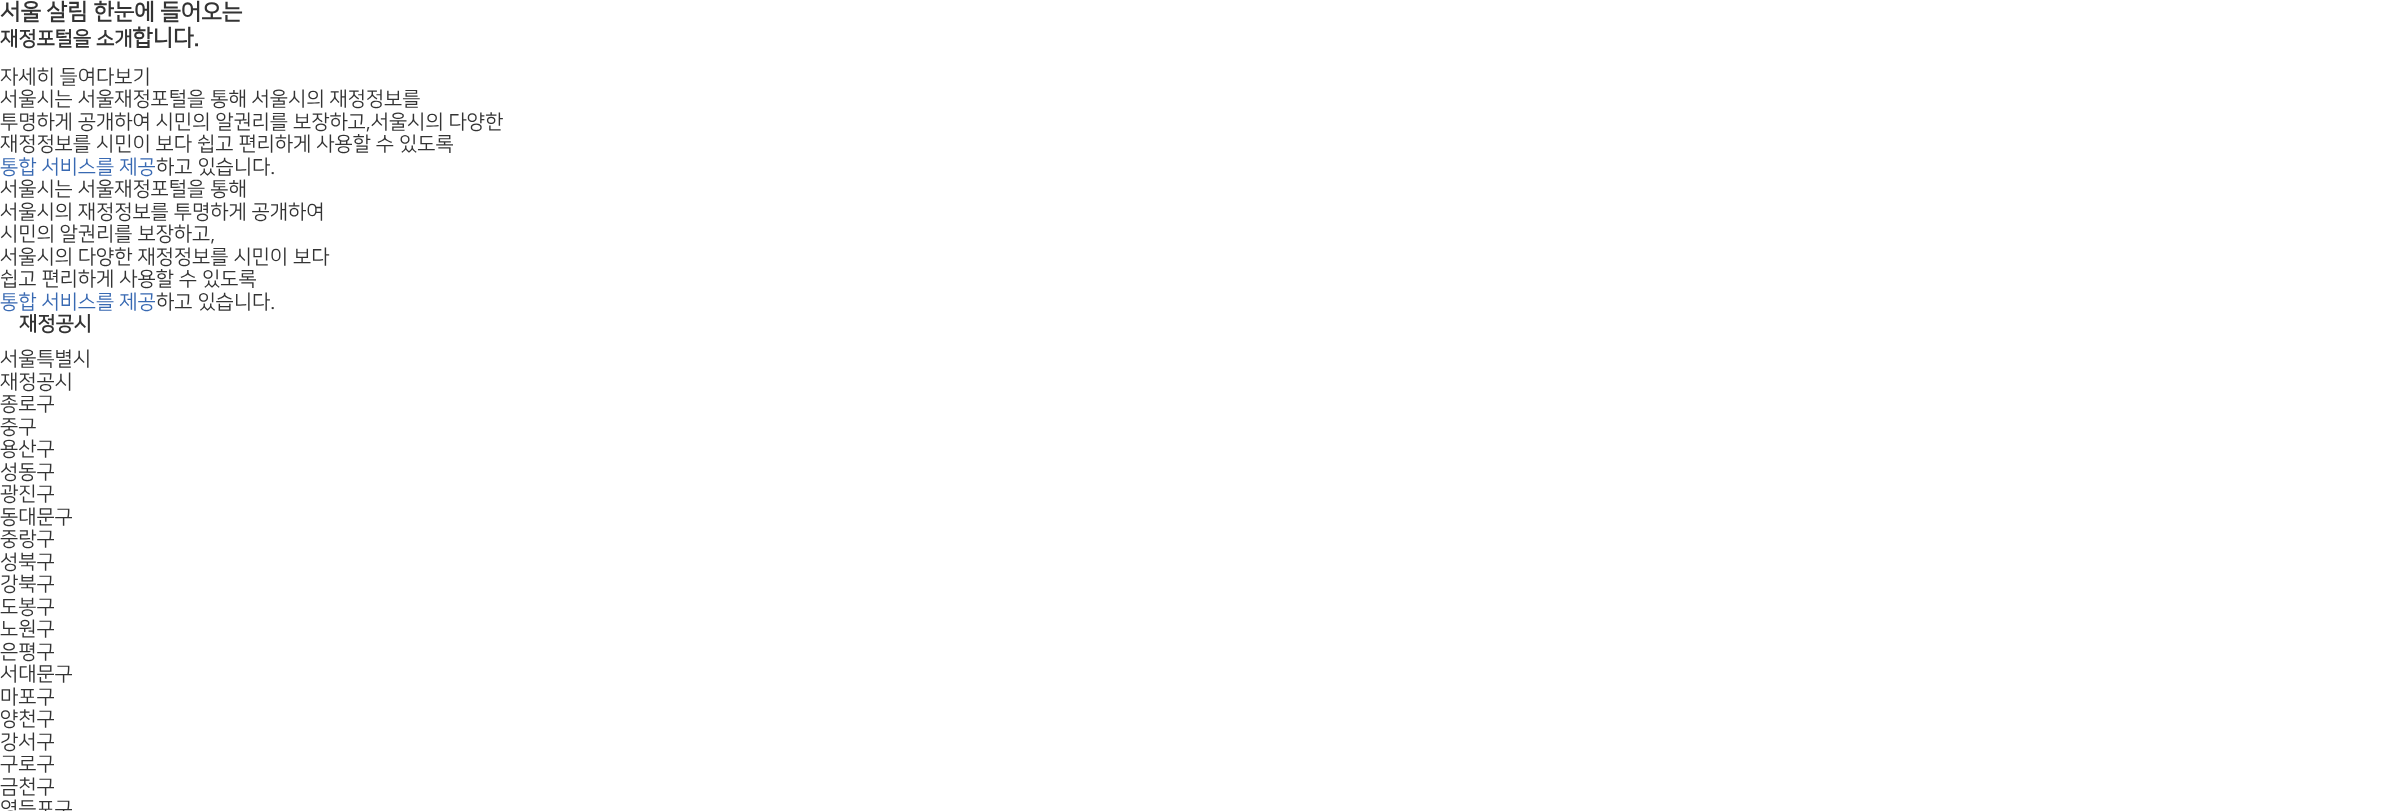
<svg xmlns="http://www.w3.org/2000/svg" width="2400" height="811">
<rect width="100%" height="100%" fill="#fff"/>
<text x="0" y="19" style="font-family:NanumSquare;font-size:22.5px;font-weight:bold;fill:#333">서울 살림 한눈에 들어오는</text>
<text x="0" y="45" style="font-family:NanumSquare;font-size:20px;font-weight:bold;fill:#333">재정포털을 소개</text>
<text x="132" y="45" style="font-family:NanumSquare;font-size:22.5px;font-weight:bold;fill:#333">합니다.</text>
<text x="0" y="83" style="font-family:NanumSquare;font-size:20px;fill:#333">자세히 들여다보기</text>
<text x="0" y="105" style="font-family:NanumSquare;font-size:20px;fill:#333">서울시는 서울재정포털을 통해 서울시의 재정정보를</text>
<text x="0" y="128" style="font-family:NanumSquare;font-size:20px;fill:#333">투명하게 공개하여 시민의 알권리를 보장하고,서울시의 다양한</text>
<text x="0" y="150" style="font-family:NanumSquare;font-size:20px;fill:#333">재정정보를 시민이 보다 쉽고 편리하게 사용할 수 있도록</text>
<text x="0" y="173" style="font-family:NanumSquare;font-size:20px;fill:#3869b2">통합 서비스를 제공</text>
<text x="156" y="173" style="font-family:NanumSquare;font-size:20px;fill:#333">하고 있습니다.</text>
<text x="0" y="195" style="font-family:NanumSquare;font-size:20px;fill:#333">서울시는 서울재정포털을 통해</text>
<text x="0" y="218" style="font-family:NanumSquare;font-size:20px;fill:#333">서울시의 재정정보를 투명하게 공개하여</text>
<text x="0" y="240" style="font-family:NanumSquare;font-size:20px;fill:#333">시민의 알권리를 보장하고,</text>
<text x="0" y="263" style="font-family:NanumSquare;font-size:20px;fill:#333">서울시의 다양한 재정정보를 시민이 보다</text>
<text x="0" y="285" style="font-family:NanumSquare;font-size:20px;fill:#333">쉽고 편리하게 사용할 수 있도록</text>
<text x="0" y="308" style="font-family:NanumSquare;font-size:20px;fill:#3869b2">통합 서비스를 제공</text>
<text x="156" y="308" style="font-family:NanumSquare;font-size:20px;fill:#333">하고 있습니다.</text>
<text x="19" y="330" style="font-family:NanumSquare;font-size:20px;font-weight:bold;fill:#333">재정공시</text>
<text x="0" y="365" style="font-family:NanumSquare;font-size:20px;fill:#333">서울특별시</text>
<text x="0" y="388" style="font-family:NanumSquare;font-size:20px;fill:#333">재정공시</text>
<text x="0" y="410" style="font-family:NanumSquare;font-size:20px;fill:#333">종로구</text>
<text x="0" y="433" style="font-family:NanumSquare;font-size:20px;fill:#333">중구</text>
<text x="0" y="455" style="font-family:NanumSquare;font-size:20px;fill:#333">용산구</text>
<text x="0" y="478" style="font-family:NanumSquare;font-size:20px;fill:#333">성동구</text>
<text x="0" y="500" style="font-family:NanumSquare;font-size:20px;fill:#333">광진구</text>
<text x="0" y="523" style="font-family:NanumSquare;font-size:20px;fill:#333">동대문구</text>
<text x="0" y="545" style="font-family:NanumSquare;font-size:20px;fill:#333">중랑구</text>
<text x="0" y="568" style="font-family:NanumSquare;font-size:20px;fill:#333">성북구</text>
<text x="0" y="590" style="font-family:NanumSquare;font-size:20px;fill:#333">강북구</text>
<text x="0" y="613" style="font-family:NanumSquare;font-size:20px;fill:#333">도봉구</text>
<text x="0" y="635" style="font-family:NanumSquare;font-size:20px;fill:#333">노원구</text>
<text x="0" y="658" style="font-family:NanumSquare;font-size:20px;fill:#333">은평구</text>
<text x="0" y="680" style="font-family:NanumSquare;font-size:20px;fill:#333">서대문구</text>
<text x="0" y="703" style="font-family:NanumSquare;font-size:20px;fill:#333">마포구</text>
<text x="0" y="725" style="font-family:NanumSquare;font-size:20px;fill:#333">양천구</text>
<text x="0" y="748" style="font-family:NanumSquare;font-size:20px;fill:#333">강서구</text>
<text x="0" y="770" style="font-family:NanumSquare;font-size:20px;fill:#333">구로구</text>
<text x="0" y="793" style="font-family:NanumSquare;font-size:20px;fill:#333">금천구</text>
<text x="0" y="815" style="font-family:NanumSquare;font-size:20px;fill:#333">영등포구</text>
</svg>
